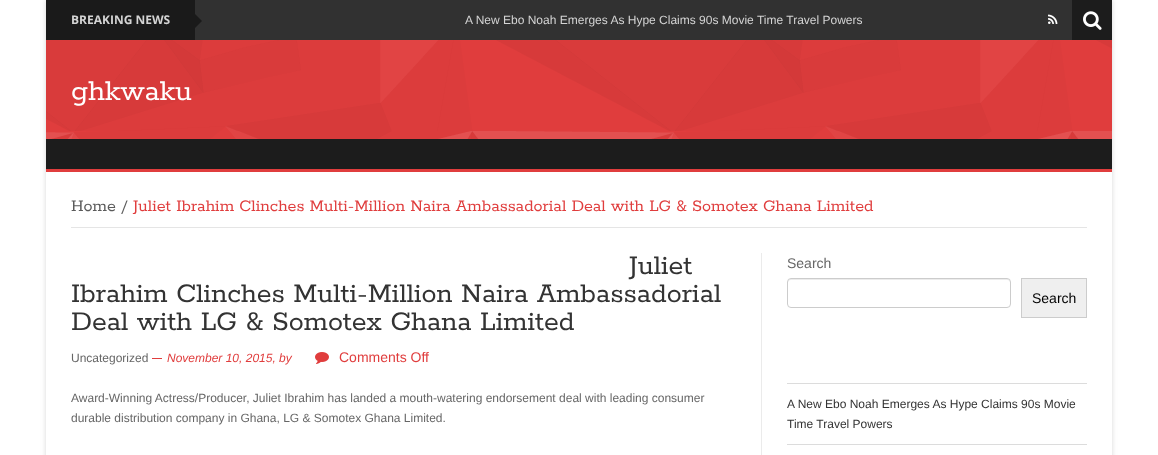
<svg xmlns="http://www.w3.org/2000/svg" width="1158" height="455">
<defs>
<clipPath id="clip1"><path d="M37 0h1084v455h-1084zm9 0h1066v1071h-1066z" clip-rule="evenodd"/></clipPath>
</defs>
<rect width="100%" height="100%" fill="#fff"/>
<g clip-path="url(#clip1)">
<rect x="46" width="1066" height="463" fill="#cacacabf" filter="blur(2.5px)"/>
</g>
<rect x="195" width="877" height="40" fill="#313131"/>
<rect x="46" width="149" height="40" fill="#1a1a1a"/>
<text x="71" y="24" style="font-family:Open Sans;font-size:12px;font-weight:bold;fill:#d4d4d4">BREAKING NEWS</text>
<path d="M195 28v-14l7 7z" fill="#1a1a1a"/>
<text x="465" y="24" style="font-family:Liberation Sans;font-size:12px;fill:#d4d4d4">A New Ebo Noah Emerges As Hype Claims 90s Movie Time Travel Powers</text>
<image x="1048" y="14" width="10" height="10" href="media/1.png"/>
<rect x="1072" width="40" height="40" fill="#1c1c1c"/>
<image x="1083" y="11" width="19" height="19" href="media/2.png"/>
<rect x="46" y="40" width="1066" height="99" fill="#e03d3d"/>
<image x="46" y="40" width="1066" height="99" href="media/3.png"/>
<text x="71" y="100" style="font-family:Rokkitt;font-size:32px;fill:#fff">ghkwaku</text>
<rect x="46" y="139" width="1066" height="30" fill="#1c1c1c"/>
<rect x="46" y="169" width="1066" height="3" fill="#e03d3d"/>
<rect x="71" y="227" width="1016" height="1" fill="#e5e5e5"/>
<text x="71" y="211" style="font-family:Rokkitt;font-size:18px;fill:#5b5b5b">Home /</text>
<text x="133" y="211" style="font-family:Rokkitt;font-size:18px;fill:#e03d3d">Juliet Ibrahim Clinches Multi-Million Naira Ambassadorial Deal with LG &amp; Somotex Ghana Limited</text>
<rect x="761" y="253" width="1" height="202" fill="#ebebeb"/>
<text x="629" y="274" style="font-family:Rokkitt;font-size:30px;fill:#333">Juliet</text>
<text x="71" y="302" style="font-family:Rokkitt;font-size:30px;fill:#333">Ibrahim Clinches Multi-Million Naira Ambassadorial</text>
<text x="71" y="330" style="font-family:Rokkitt;font-size:30px;fill:#333">Deal with LG &amp; Somotex Ghana Limited</text>
<text x="71" y="362" style="font-family:Liberation Sans;font-size:12px;fill:#666">Uncategorized</text>
<rect x="152" y="358" width="10" height="1" fill="#e03d3d"/>
<text x="167" y="362" style="font-family:Liberation Sans;font-size:12px;font-style:italic;fill:#e03d3d">November 10, 2015,</text>
<text x="279" y="362" style="font-family:Liberation Sans;font-size:12px;font-style:italic;fill:#e03d3d">by</text>
<image x="315" y="352" width="14" height="12" href="media/4.png"/>
<text x="339" y="362" style="font-family:Liberation Sans;font-size:14px;fill:#e03d3d">Comments Off</text>
<text x="71" y="402" style="font-family:Liberation Sans;font-size:12px;fill:#666">Award-Winning Actress/Producer, Juliet Ibrahim has landed a mouth-watering endorsement deal with leading consumer</text>
<text x="71" y="422" style="font-family:Liberation Sans;font-size:12px;fill:#666">durable distribution company in Ghana, LG &amp; Somotex Ghana Limited.</text>
<text x="787" y="268" style="font-family:Liberation Sans;font-size:14px;fill:#666">Search</text>
<path d="M791 280h216c2 0 3 1 3 3v-1c0-2-1-3-3-3h-216c-2 0-3 1-3 3v1c0-2 1-3 3-3z" fill="#ececec"/>
<rect x="787.5" y="278.5" width="223" height="29" rx="3.5" fill="none" stroke="#ccc"/>
<rect x="1021.5" y="278.5" width="65" height="39" fill="#efefef" stroke="#ccc"/>
<text x="1032" y="303" style="font-family:Liberation Sans;font-size:14px;fill:#000">Search</text>
<rect x="787" y="383" width="300" height="1" fill="#dcdcdc"/>
<text x="787" y="408" style="font-family:Liberation Sans;font-size:12px;fill:#333">A New Ebo Noah Emerges As Hype Claims 90s Movie</text>
<text x="787" y="428" style="font-family:Liberation Sans;font-size:12px;fill:#333">Time Travel Powers</text>
<rect x="787" y="444" width="300" height="1" fill="#dcdcdc"/>
</svg>
